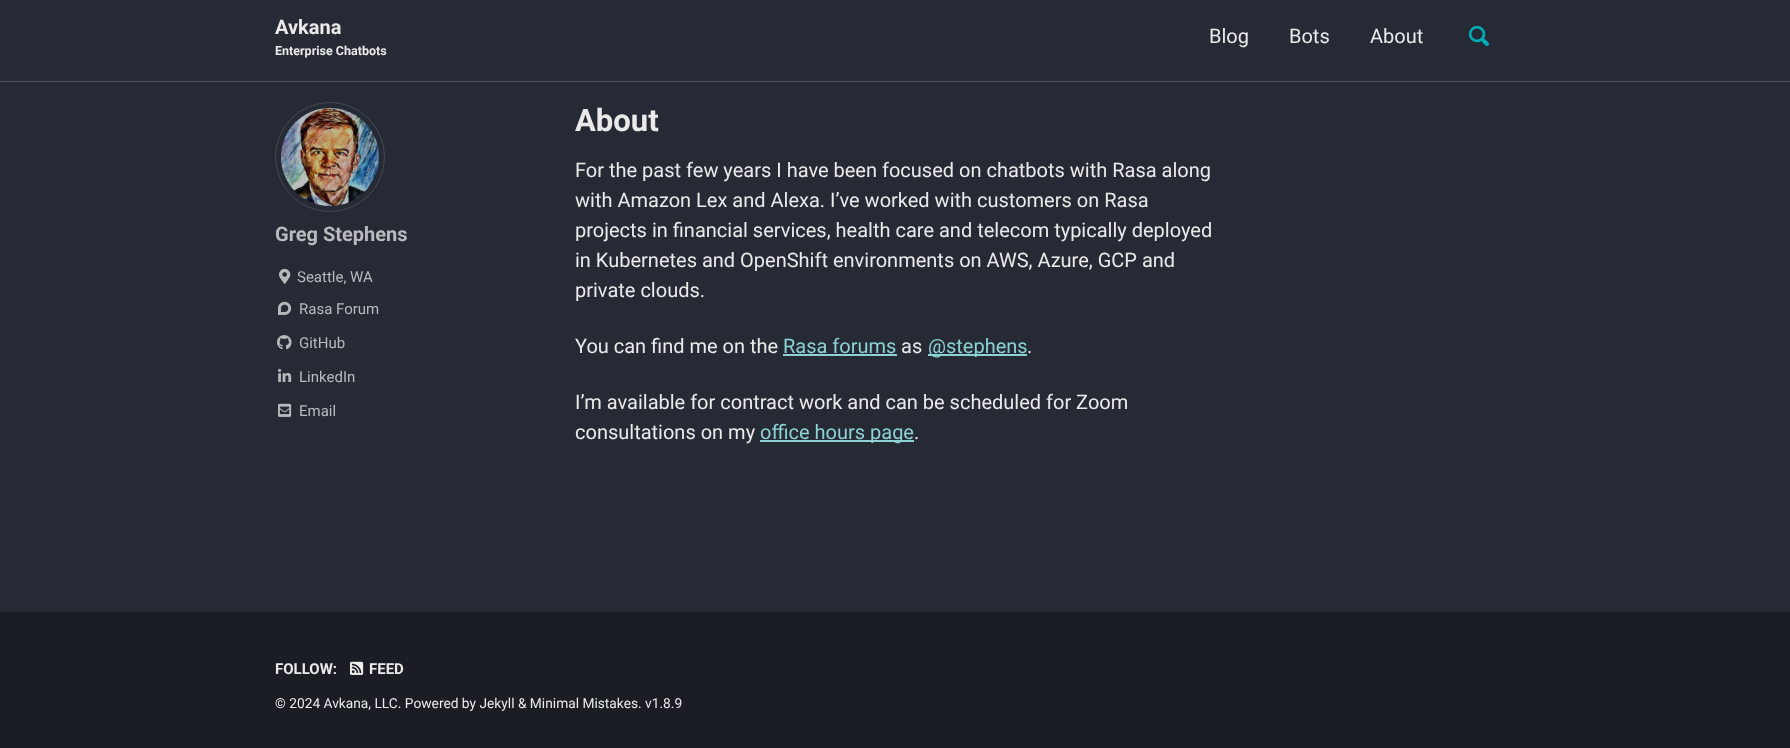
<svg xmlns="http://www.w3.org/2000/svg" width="1790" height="748">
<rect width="100%" height="100%" fill="#252a34"/>
<rect y="81" width="1790" height="1" fill="#51555d"/>
<text x="275" y="34" style="font-family:Roboto;font-size:20px;font-weight:bold;fill:#eaeaea">Avkana</text>
<text x="275" y="55" style="font-family:Roboto;font-size:12.5px;font-weight:bold;fill:#eaeaea">Enterprise Chatbots</text>
<text x="1209" y="43" style="font-family:Roboto;font-size:20px;fill:#eaeaea">Blog</text>
<text x="1289" y="43" style="font-family:Roboto;font-size:20px;fill:#eaeaea">Bots</text>
<text x="1370" y="43" style="font-family:Roboto;font-size:20px;fill:#eaeaea">About</text>
<image x="1469" y="25" width="20" height="21" href="media/1.png"/>
<circle cx="330" cy="157" r="54.5" fill="none" stroke="#464a53"/>
<image x="281" y="108" width="98" height="98" href="media/2.png"/>
<text x="275" y="241" style="font-family:Roboto;font-size:20px;font-weight:bold;fill:#b9babd">Greg Stephens</text>
<image x="279" y="268" width="12" height="16" href="media/3.png"/>
<text x="297" y="282" style="font-family:Roboto;font-size:15px;fill:#b9babd">Seattle, WA</text>
<image x="278" y="301" width="14" height="14" href="media/4.png"/>
<text x="299" y="314" style="font-family:Roboto;font-size:15px;fill:#b9babd">Rasa Forum</text>
<image x="277" y="335" width="15" height="15" href="media/5.png"/>
<text x="299" y="348" style="font-family:Roboto;font-size:15px;fill:#b9babd">GitHub</text>
<image x="278" y="368" width="14" height="14" href="media/6.png"/>
<text x="299" y="382" style="font-family:Roboto;font-size:15px;fill:#b9babd">LinkedIn</text>
<image x="278" y="403" width="14" height="14" href="media/7.png"/>
<text x="299" y="416" style="font-family:Roboto;font-size:15px;fill:#b9babd">Email</text>
<text x="575" y="131" style="font-family:Roboto;font-size:31px;font-weight:bold;fill:#eaeaea">About</text>
<text x="575" y="177" style="font-family:Roboto;font-size:20px;fill:#eaeaea">For the past few years I have been focused on chatbots with Rasa along</text>
<text x="575" y="207" style="font-family:Roboto;font-size:20px;fill:#eaeaea">with Amazon Lex and Alexa. I’ve worked with customers on Rasa</text>
<text x="575" y="237" style="font-family:Roboto;font-size:20px;fill:#eaeaea">projects in financial services, health care and telecom typically deployed</text>
<text x="575" y="267" style="font-family:Roboto;font-size:20px;fill:#eaeaea">in Kubernetes and OpenShift environments on AWS, Azure, GCP and</text>
<text x="575" y="297" style="font-family:Roboto;font-size:20px;fill:#eaeaea">private clouds.</text>
<text x="575" y="353" style="font-family:Roboto;font-size:20px;fill:#eaeaea">You can find me on the</text>
<text x="783" y="353" style="font-family:Roboto;font-size:20px;fill:#8cd2d5">Rasa forums</text>
<rect x="783" y="354" width="114" height="2" fill="#8cd2d5"/>
<text x="901" y="353" style="font-family:Roboto;font-size:20px;fill:#eaeaea">as</text>
<rect x="928" y="354" width="99" height="2" fill="#8cd2d5"/>
<text x="928" y="353" style="font-family:Roboto;font-size:20px;fill:#8cd2d5">@stephens</text>
<text x="1027" y="353" style="font-family:Roboto;font-size:20px;fill:#eaeaea">.</text>
<text x="575" y="409" style="font-family:Roboto;font-size:20px;fill:#eaeaea">I’m available for contract work and can be scheduled for Zoom</text>
<text x="575" y="439" style="font-family:Roboto;font-size:20px;fill:#eaeaea">consultations on my</text>
<rect x="760" y="440" width="154" height="2" fill="#8cd2d5"/>
<text x="760" y="439" style="font-family:Roboto;font-size:20px;fill:#8cd2d5">office hours page</text>
<text x="914" y="439" style="font-family:Roboto;font-size:20px;fill:#eaeaea">.</text>
<rect y="612" width="1790" height="136" fill="#1a1d24"/>
<text x="275" y="674" style="font-family:Roboto;font-size:15px;font-weight:bold;fill:#eaeaea">FOLLOW:</text>
<image x="350" y="661" width="14" height="14" href="media/8.png"/>
<text x="369" y="674" style="font-family:Roboto;font-size:15px;font-weight:bold;fill:#eaeaea">FEED</text>
<text x="275" y="708" style="font-family:Roboto;font-size:13.75px;fill:#eaeaea">© 2024 Avkana, LLC. Powered by Jekyll &amp; Minimal Mistakes. v1.8.9</text>
</svg>
